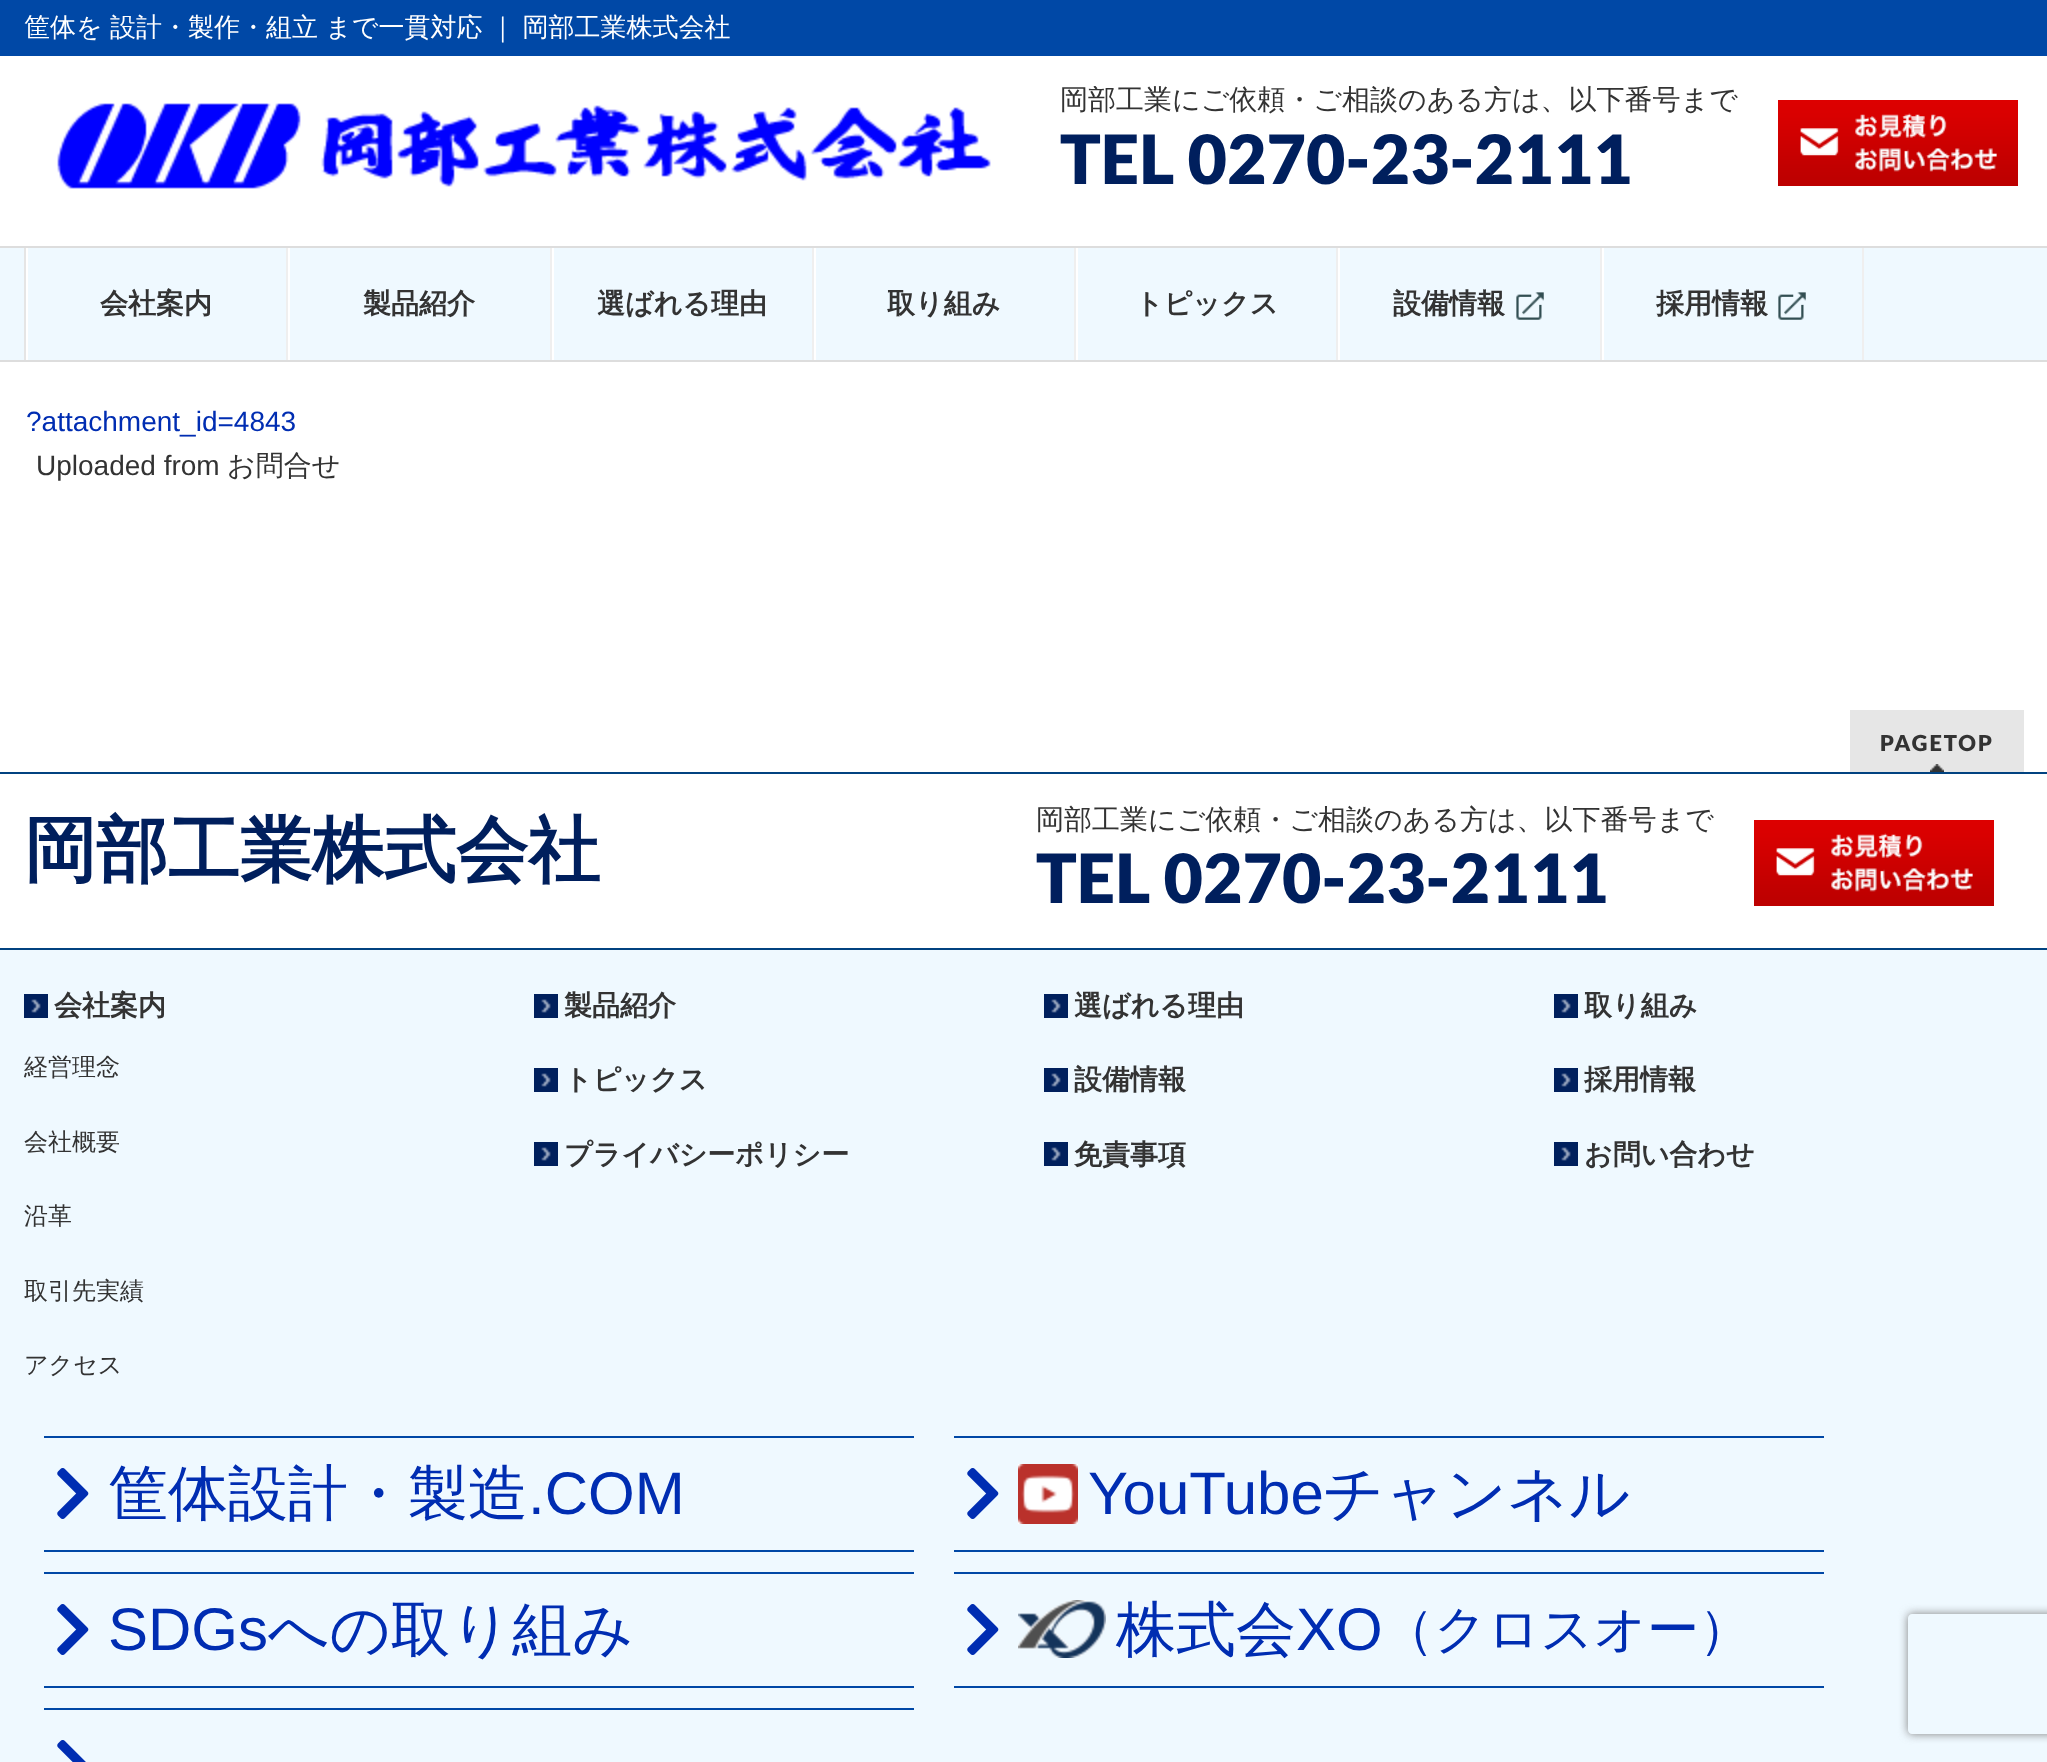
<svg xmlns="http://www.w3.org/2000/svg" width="2047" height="1762">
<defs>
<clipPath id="clip1"><rect x="1060" y="86" width="968" height="122"/></clipPath>
<clipPath id="clip2"><path d="M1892 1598h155v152h-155zm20 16h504c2 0 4 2 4 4v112c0 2-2 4-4 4h-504c-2 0-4-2-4-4v-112c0-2 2-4 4-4z" clip-rule="evenodd"/></clipPath>
</defs>
<rect width="100%" height="100%" fill="#fff"/>
<rect width="2047" height="56" fill="#0048a6"/>
<text x="24" y="36" word-spacing="-0.5" style="font-family:WenQuanYi Zen Hei;font-size:26px;font-weight:500;fill:#fff">筐体を 設計・製作・組立 まで一貫対応 ｜ 岡部工業株式会社</text>
<image x="57" y="103" width="934" height="86" href="media/1.png"/>
<g clip-path="url(#clip1)">
<text x="1060" y="109" style="font-family:WenQuanYi Zen Hei;font-size:28px;font-weight:500;fill:#333">岡部工業にご依頼・ご相談のある方は、以下番号まで</text>
</g>
<text x="1060" y="184" style="font-family:Lato;font-size:68px;font-weight:900;fill:#001f5d">TEL 0270-23-2111</text>
<image x="1778" y="100" width="240" height="86" href="media/2.png"/>
<rect y="248" width="2047" height="112" fill="#eff9ff"/>
<rect y="246" width="2047" height="2" fill="#ddd"/>
<rect y="360" width="2047" height="2" fill="#ddd"/>
<rect x="24" y="248" width="2" height="112" fill="#e5e5e5"/>
<rect x="26" y="248" width="2" height="112" fill="#fff"/>
<rect x="286" y="248" width="2" height="112" fill="#efefef"/>
<text x="100" y="313" style="font-family:WenQuanYi Zen Hei;font-size:28px;font-weight:bold;fill:#333">会社案内</text>
<rect x="288" y="248" width="2" height="112" fill="#fff"/>
<rect x="550" y="248" width="2" height="112" fill="#efefef"/>
<text x="363" y="313" style="font-family:WenQuanYi Zen Hei;font-size:28px;font-weight:bold;fill:#333">製品紹介</text>
<rect x="552" y="248" width="2" height="112" fill="#fff"/>
<rect x="812" y="248" width="2" height="112" fill="#efefef"/>
<text x="597" y="313" style="font-family:WenQuanYi Zen Hei;font-size:28px;font-weight:bold;fill:#333">選ばれる理由</text>
<rect x="814" y="248" width="2" height="112" fill="#fff"/>
<rect x="1074" y="248" width="2" height="112" fill="#efefef"/>
<text x="887" y="313" style="font-family:WenQuanYi Zen Hei;font-size:28px;font-weight:bold;fill:#333">取り組み</text>
<rect x="1076" y="248" width="2" height="112" fill="#fff"/>
<rect x="1336" y="248" width="2" height="112" fill="#efefef"/>
<text x="1135" y="313" style="font-family:WenQuanYi Zen Hei;font-size:28px;font-weight:bold;fill:#333">トピックス</text>
<rect x="1338" y="248" width="2" height="112" fill="#fff"/>
<rect x="1600" y="248" width="2" height="112" fill="#efefef"/>
<text x="1393" y="313" style="font-family:WenQuanYi Zen Hei;font-size:28px;font-weight:bold;fill:#333">設備情報</text>
<image x="1516" y="292" width="28" height="28" href="media/3.png"/>
<rect x="1602" y="248" width="2" height="112" fill="#fff"/>
<rect x="1862" y="248" width="2" height="112" fill="#efefef"/>
<text x="1656" y="313" style="font-family:WenQuanYi Zen Hei;font-size:28px;font-weight:bold;fill:#333">採用情報</text>
<image x="1778" y="292" width="28" height="28" href="media/3.png"/>
<text x="26" y="431" style="font-family:Liberation Sans;font-size:28px;fill:#002db2">?attachment_id=4843</text>
<text x="36" y="475" style="font-family:Liberation Sans;font-size:28px;fill:#333">Uploaded from</text>
<text x="227" y="475" style="font-family:WenQuanYi Zen Hei;font-size:28px;font-weight:500;fill:#333">お問合せ</text>
<rect x="1850" y="710" width="174" height="62" fill="#e6e6e6"/>
<image x="1930" y="764" width="14" height="8" href="media/4.png"/>
<text x="1880" y="751" style="font-family:Lato;font-size:22px;font-weight:900;letter-spacing:2px;fill:#333">PAGETOP</text>
<rect y="772" width="2047" height="2" fill="#014280"/>
<rect y="948" width="2047" height="2" fill="#014280"/>
<text x="24" y="875" style="font-family:WenQuanYi Zen Hei;font-size:72px;font-weight:bold;fill:#001f5d">岡部工業株式会社</text>
<text x="1036" y="829" style="font-family:WenQuanYi Zen Hei;font-size:28px;font-weight:500;fill:#333">岡部工業にご依頼・ご相談のある方は、以下番号まで</text>
<text x="1036" y="903" style="font-family:Lato;font-size:68px;font-weight:900;fill:#001f5d">TEL 0270-23-2111</text>
<image x="1754" y="820" width="240" height="86" href="media/5.png"/>
<rect y="950" width="2047" height="812" fill="#eff9ff"/>
<image x="24" y="994" width="24" height="24" href="media/6.png"/>
<text x="54" y="1015" style="font-family:WenQuanYi Zen Hei;font-size:28px;font-weight:bold;fill:#333">会社案内</text>
<text x="24" y="1075" style="font-family:WenQuanYi Zen Hei;font-size:24px;font-weight:500;fill:#333">経営理念</text>
<text x="24" y="1150" style="font-family:WenQuanYi Zen Hei;font-size:24px;font-weight:500;fill:#333">会社概要</text>
<text x="24" y="1224" style="font-family:WenQuanYi Zen Hei;font-size:24px;font-weight:500;fill:#333">沿革</text>
<text x="24" y="1299" style="font-family:WenQuanYi Zen Hei;font-size:24px;font-weight:500;fill:#333">取引先実績</text>
<text x="24" y="1373" style="font-family:WenQuanYi Zen Hei;font-size:24px;font-weight:500;fill:#333">アクセス</text>
<image x="534" y="994" width="24" height="24" href="media/6.png"/>
<text x="564" y="1015" style="font-family:WenQuanYi Zen Hei;font-size:28px;font-weight:bold;fill:#333">製品紹介</text>
<image x="1044" y="994" width="24" height="24" href="media/6.png"/>
<text x="1074" y="1015" style="font-family:WenQuanYi Zen Hei;font-size:28px;font-weight:bold;fill:#333">選ばれる理由</text>
<image x="1554" y="994" width="24" height="24" href="media/6.png"/>
<text x="1584" y="1015" style="font-family:WenQuanYi Zen Hei;font-size:28px;font-weight:bold;fill:#333">取り組み</text>
<image x="534" y="1068" width="24" height="24" href="media/6.png"/>
<text x="564" y="1089" style="font-family:WenQuanYi Zen Hei;font-size:28px;font-weight:bold;fill:#333">トピックス</text>
<image x="1044" y="1068" width="24" height="24" href="media/6.png"/>
<text x="1074" y="1089" style="font-family:WenQuanYi Zen Hei;font-size:28px;font-weight:bold;fill:#333">設備情報</text>
<image x="1554" y="1068" width="24" height="24" href="media/6.png"/>
<text x="1584" y="1089" style="font-family:WenQuanYi Zen Hei;font-size:28px;font-weight:bold;fill:#333">採用情報</text>
<image x="534" y="1142" width="24" height="24" href="media/6.png"/>
<text x="564" y="1164" style="font-family:WenQuanYi Zen Hei;font-size:28px;font-weight:bold;fill:#333">プライバシーポリシー</text>
<image x="1044" y="1142" width="24" height="24" href="media/6.png"/>
<text x="1074" y="1164" style="font-family:WenQuanYi Zen Hei;font-size:28px;font-weight:bold;fill:#333">免責事項</text>
<image x="1554" y="1142" width="24" height="24" href="media/6.png"/>
<text x="1584" y="1164" style="font-family:WenQuanYi Zen Hei;font-size:28px;font-weight:bold;fill:#333">お問い合わせ</text>
<rect x="44" y="1436" width="870" height="2" fill="#0048a6"/>
<rect x="44" y="1550" width="870" height="2" fill="#0048a6"/>
<image x="57" y="1468" width="32" height="51" href="media/7.png"/>
<text x="108" y="1514" style="font-family:WenQuanYi Zen Hei;font-size:60px;font-weight:500;fill:#002db2">筐体設計・製造</text>
<text x="528" y="1514" style="font-family:Liberation Sans;font-size:60px;fill:#002db2">.COM</text>
<rect x="954" y="1436" width="870" height="2" fill="#0048a6"/>
<rect x="954" y="1550" width="870" height="2" fill="#0048a6"/>
<image x="967" y="1468" width="32" height="51" href="media/7.png"/>
<image x="1018" y="1464" width="60" height="60" href="media/8.png"/>
<text x="1088" y="1514" style="font-family:Liberation Sans;font-size:60px;fill:#002db2">YouTube</text>
<text x="1323" y="1514" style="font-family:WenQuanYi Zen Hei;font-size:60px;font-weight:500;fill:#002db2">チャンネル</text>
<rect x="44" y="1572" width="870" height="2" fill="#0048a6"/>
<rect x="44" y="1686" width="870" height="2" fill="#0048a6"/>
<image x="57" y="1604" width="32" height="51" href="media/7.png"/>
<text x="108" y="1650" style="font-family:Liberation Sans;font-size:60px;fill:#002db2">SDGs</text>
<text x="268" y="1650" style="font-family:WenQuanYi Zen Hei;font-size:60px;font-weight:500;fill:#002db2">への取り組み</text>
<rect x="954" y="1572" width="870" height="2" fill="#0048a6"/>
<rect x="954" y="1686" width="870" height="2" fill="#0048a6"/>
<image x="967" y="1604" width="32" height="51" href="media/7.png"/>
<image x="1018" y="1600" width="88" height="58" href="media/9.png"/>
<text x="1116" y="1650" style="font-family:WenQuanYi Zen Hei;font-size:60px;font-weight:500;fill:#002db2">株式会</text>
<text x="1296" y="1650" style="font-family:Liberation Sans;font-size:60px;fill:#002db2">XO</text>
<text x="1382" y="1647" style="font-family:WenQuanYi Zen Hei;font-size:52px;font-weight:500;fill:#002db2">（クロスオー）</text>
<rect x="44" y="1708" width="870" height="2" fill="#0048a6"/>
<image x="57" y="1740" width="29" height="22" href="media/10.png"/>
<g clip-path="url(#clip2)">
<rect x="1908" y="1614" width="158" height="120" rx="4" fill="#808080" filter="blur(5px)"/>
</g>
</svg>
